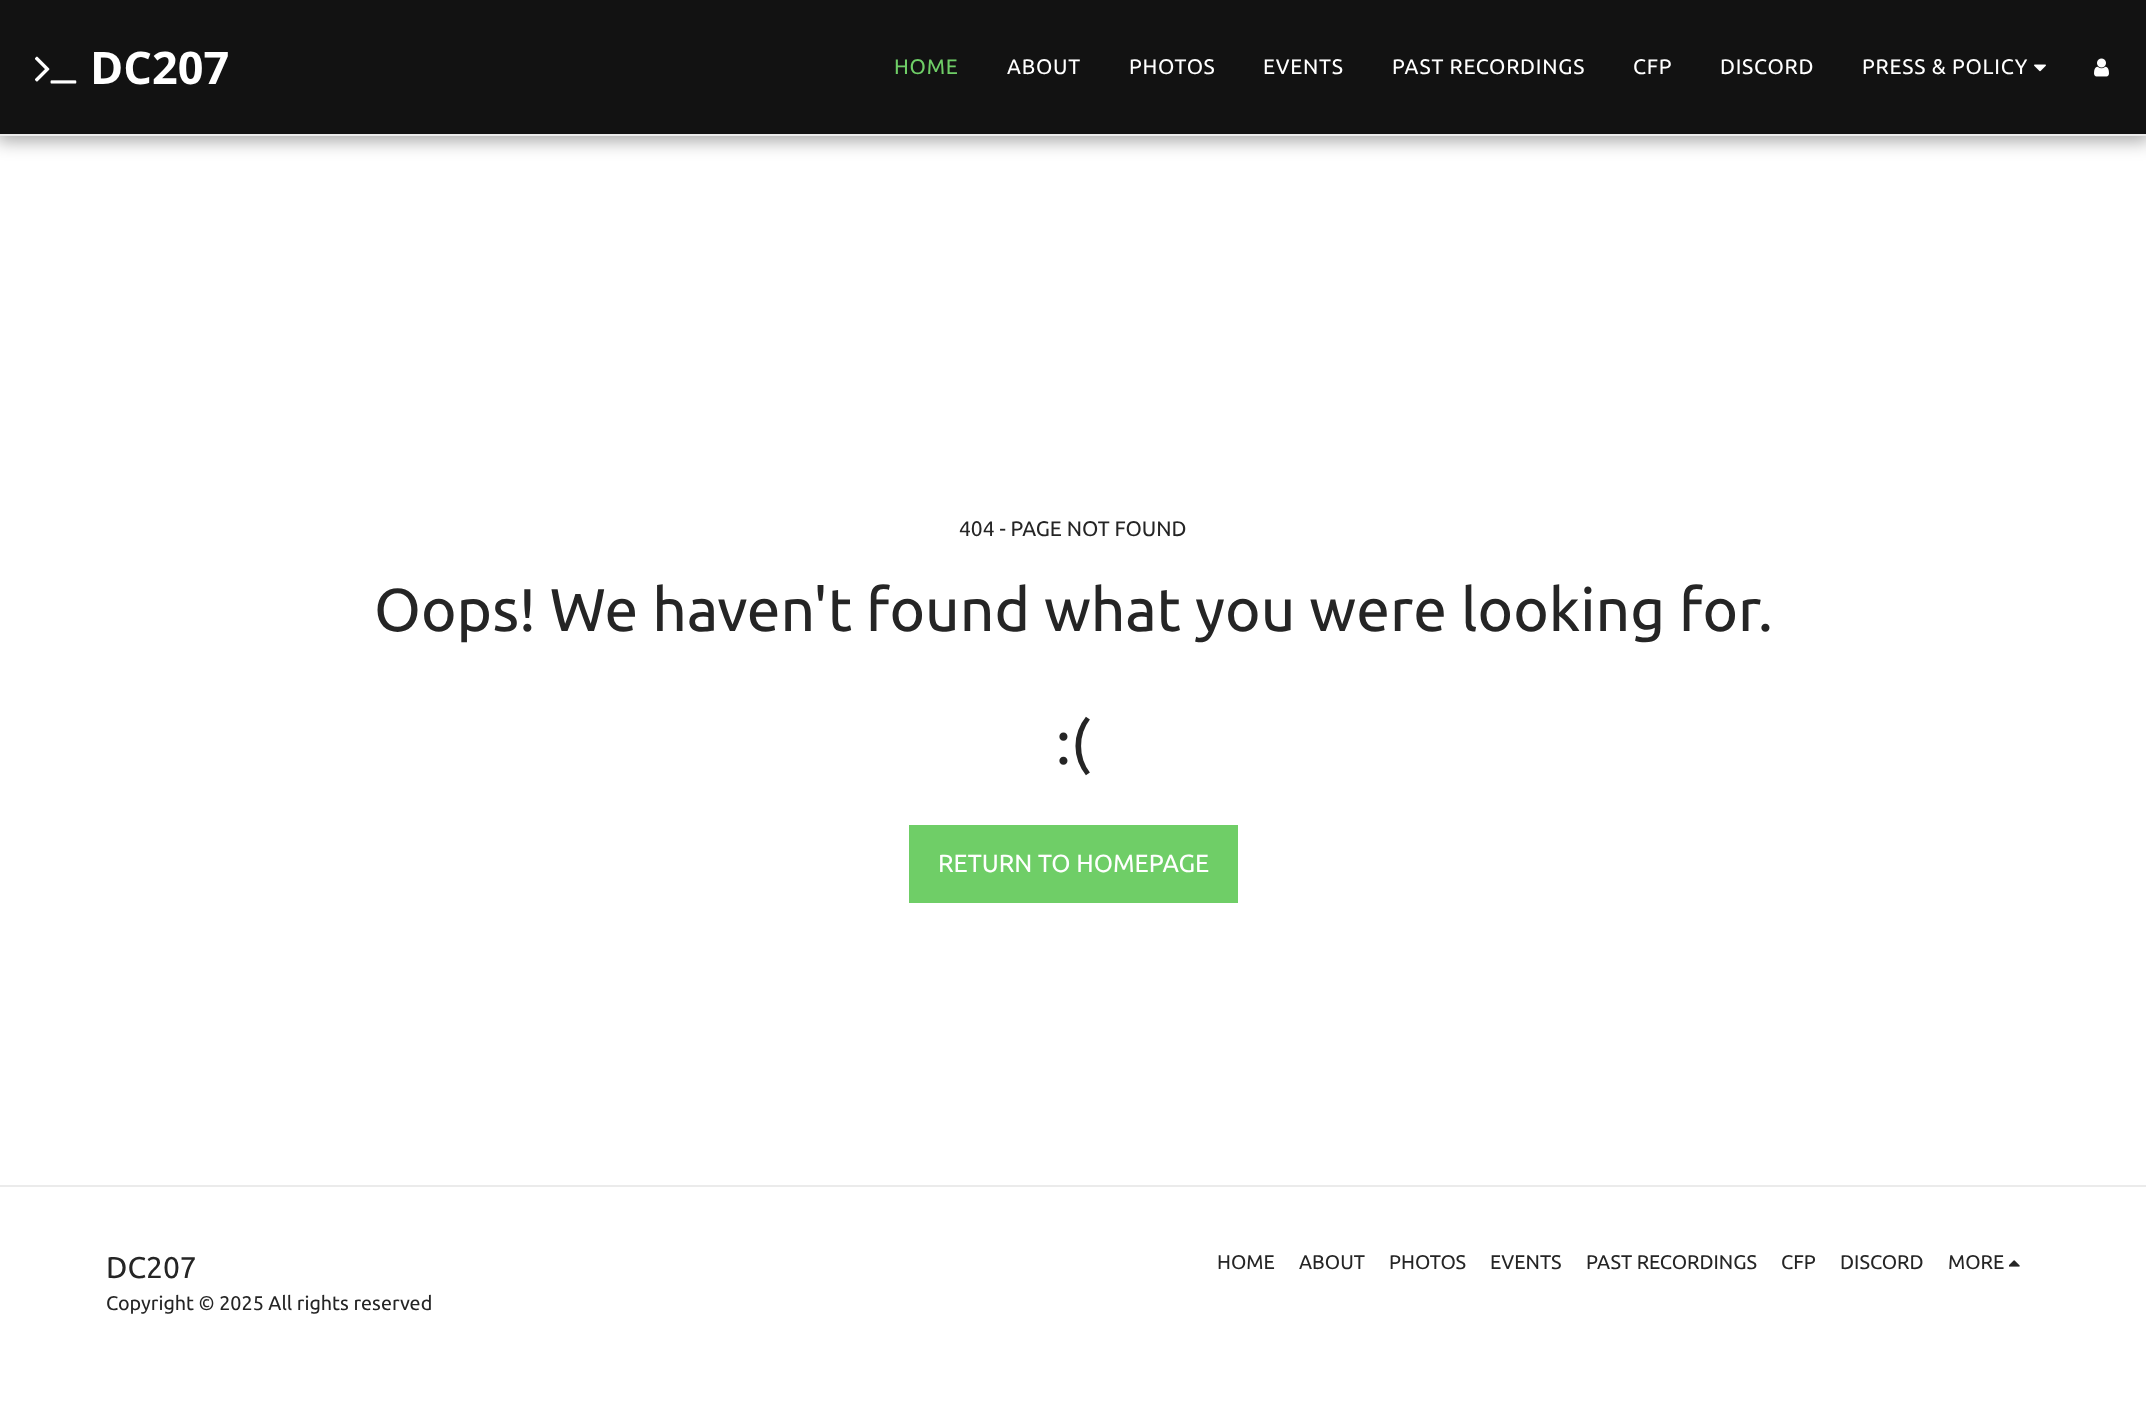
<svg xmlns="http://www.w3.org/2000/svg" width="2146" height="1407">
<rect width="100%" height="100%" fill="#fff"/>
<rect x="-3" width="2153" height="141" fill="#00000059" filter="blur(9px)"/>
<rect width="2146" height="134" fill="#121212"/>
<rect y="134" width="2146" height="2" fill="#ebebeb"/>
<image x="35" y="56" width="42" height="28" href="media/1.png"/>
<text x="90" y="84" style="font-family:Open Sans;font-size:45px;font-weight:bold;fill:#fff">DC207</text>
<text x="894" y="74" style="font-family:Ubuntu;font-size:21px;letter-spacing:0.75px;fill:#6fce67">HOME</text>
<text x="1007" y="74" style="font-family:Ubuntu;font-size:21px;letter-spacing:0.75px;fill:#fff">ABOUT</text>
<text x="1129" y="74" style="font-family:Ubuntu;font-size:21px;letter-spacing:0.75px;fill:#fff">PHOTOS</text>
<text x="1263" y="74" style="font-family:Ubuntu;font-size:21px;letter-spacing:0.75px;fill:#fff">EVENTS</text>
<text x="1392" y="74" style="font-family:Ubuntu;font-size:21px;letter-spacing:0.75px;fill:#fff">PAST RECORDINGS</text>
<text x="1633" y="74" style="font-family:Ubuntu;font-size:21px;letter-spacing:0.75px;fill:#fff">CFP</text>
<text x="1720" y="74" style="font-family:Ubuntu;font-size:21px;letter-spacing:0.75px;fill:#fff">DISCORD</text>
<text x="1862" y="74" style="font-family:Ubuntu;font-size:21px;letter-spacing:0.75px;fill:#fff">PRESS &amp; POLICY</text>
<image x="2034" y="64" width="12" height="8" href="media/2.png"/>
<image x="2094" y="58" width="15" height="19" href="media/3.png"/>
<text x="959" y="536" style="font-family:Ubuntu;font-size:21px;fill:#252525">404 - PAGE NOT FOUND</text>
<text x="374" y="631" style="font-family:Ubuntu;font-size:60.4px;fill:#252525">Oops! We haven't found what you were looking for.</text>
<text x="1056" y="764" style="font-family:Ubuntu;font-size:60.4px;fill:#252525">:(</text>
<rect x="909" y="825" width="329" height="78" fill="#6fce67"/>
<text x="938" y="872" style="font-family:Ubuntu;font-size:24.75px;fill:#fff">RETURN TO HOMEPAGE</text>
<rect y="1185" width="2146" height="2" fill="#ebebeb"/>
<text x="106" y="1278" style="font-family:Ubuntu;font-size:30px;fill:#252525">DC207</text>
<text x="106" y="1310" style="font-family:Ubuntu;font-size:19.75px;fill:#252525">Copyright © 2025 All rights reserved</text>
<text x="1217" y="1269" style="font-family:Ubuntu;font-size:19.75px;fill:#252525">HOME</text>
<text x="1299" y="1269" style="font-family:Ubuntu;font-size:19.75px;fill:#252525">ABOUT</text>
<text x="1389" y="1269" style="font-family:Ubuntu;font-size:19.75px;fill:#252525">PHOTOS</text>
<text x="1490" y="1269" style="font-family:Ubuntu;font-size:19.75px;fill:#252525">EVENTS</text>
<text x="1586" y="1269" style="font-family:Ubuntu;font-size:19.75px;fill:#252525">PAST RECORDINGS</text>
<text x="1781" y="1269" style="font-family:Ubuntu;font-size:19.75px;fill:#252525">CFP</text>
<text x="1840" y="1269" style="font-family:Ubuntu;font-size:19.75px;fill:#252525">DISCORD</text>
<text x="1948" y="1269" style="font-family:Ubuntu;font-size:19.75px;fill:#252525">MORE</text>
<image x="2009" y="1260" width="11" height="7" href="media/4.png"/>
</svg>
